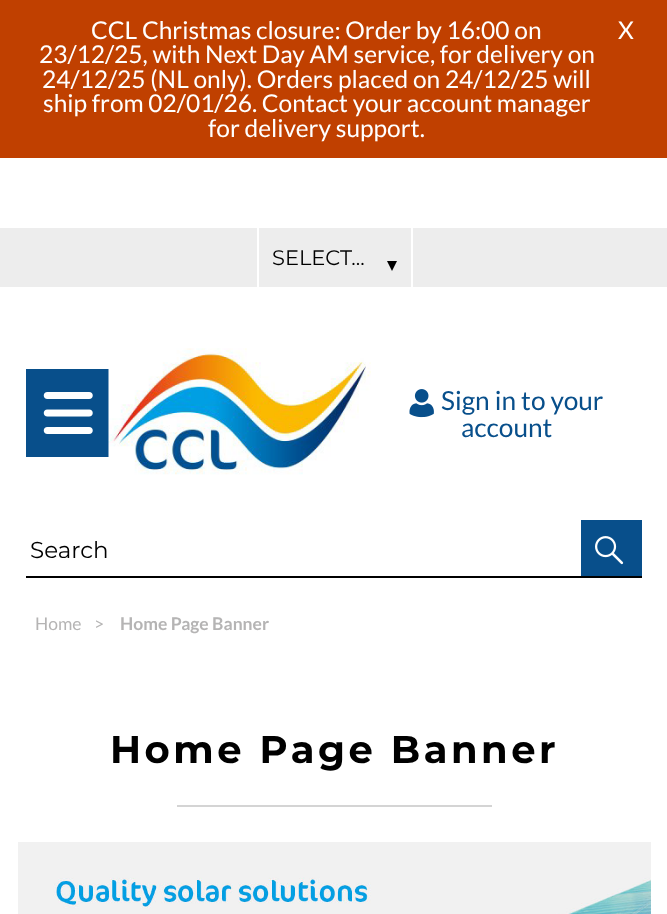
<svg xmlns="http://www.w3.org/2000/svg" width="667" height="914">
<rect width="100%" height="100%" fill="#fff"/>
<rect width="667" height="158" fill="#c04000"/>
<text x="91" y="39" style="font-family:Lato;font-size:24.5px;fill:#fff">CCL Christmas closure: Order by 16:00 on</text>
<text x="618" y="39" style="font-family:Lato;font-size:24.5px;fill:#fff">X</text>
<text x="39" y="63" style="font-family:Lato;font-size:24.5px;fill:#fff">23/12/25, with Next Day AM service, for delivery on</text>
<text x="42" y="88" style="font-family:Lato;font-size:24.5px;fill:#fff">24/12/25 (NL only). Orders placed on 24/12/25 will</text>
<text x="43" y="112" style="font-family:Lato;font-size:24.5px;fill:#fff">ship from 02/01/26. Contact your account manager</text>
<text x="208" y="137" style="font-family:Lato;font-size:24.5px;fill:#fff">for delivery support.</text>
<rect y="228" width="667" height="59" fill="#ededed"/>
<rect x="411" y="228" width="2" height="59" fill="#fff"/>
<rect x="257" y="228" width="2" height="59" fill="#fff"/>
<text x="272" y="265" style="font-family:Montserrat;font-size:21px;fill:#000">SELECT...</text>
<path d="M387 261h10l-5 10z" fill="#000"/>
<rect x="26" y="369" width="83" height="88" fill="#084f8b"/>
<image x="43" y="392" width="50" height="42" href="media/1.png"/>
<image x="108" y="348" width="263" height="127" href="media/2.png"/>
<image x="409" y="389" width="25" height="29" href="media/3.png"/>
<text x="441" y="410" style="font-family:Lato;font-size:26.25px;fill:#084f8b">Sign in to your</text>
<text x="461" y="437" style="font-family:Lato;font-size:26.25px;fill:#084f8b">account</text>
<rect x="26" y="576" width="616" height="2" fill="#000"/>
<text x="30" y="558" style="font-family:Montserrat;font-size:23px;fill:#000">Search</text>
<rect x="581" y="520" width="61" height="56" fill="#084f8b"/>
<image x="595" y="536" width="29" height="29" href="media/4.png"/>
<text x="35" y="630" style="font-family:Lato;font-size:17.5px;fill:#b5b4b4">Home</text>
<text x="94" y="630" style="font-family:Lato;font-size:17.5px;fill:#b5b4b4">&gt;</text>
<text x="120" y="630" style="font-family:Lato;font-size:17.5px;font-weight:bold;fill:#b5b4b4">Home Page Banner</text>
<text x="110" y="763" style="font-family:Montserrat;font-size:38.5px;font-weight:bold;letter-spacing:3.5px;fill:#000">Home Page Banner</text>
<rect x="177" y="805" width="315" height="2" fill="#d4d4d4"/>
<image x="18" y="842" width="633" height="72" href="media/5.png"/>
</svg>
